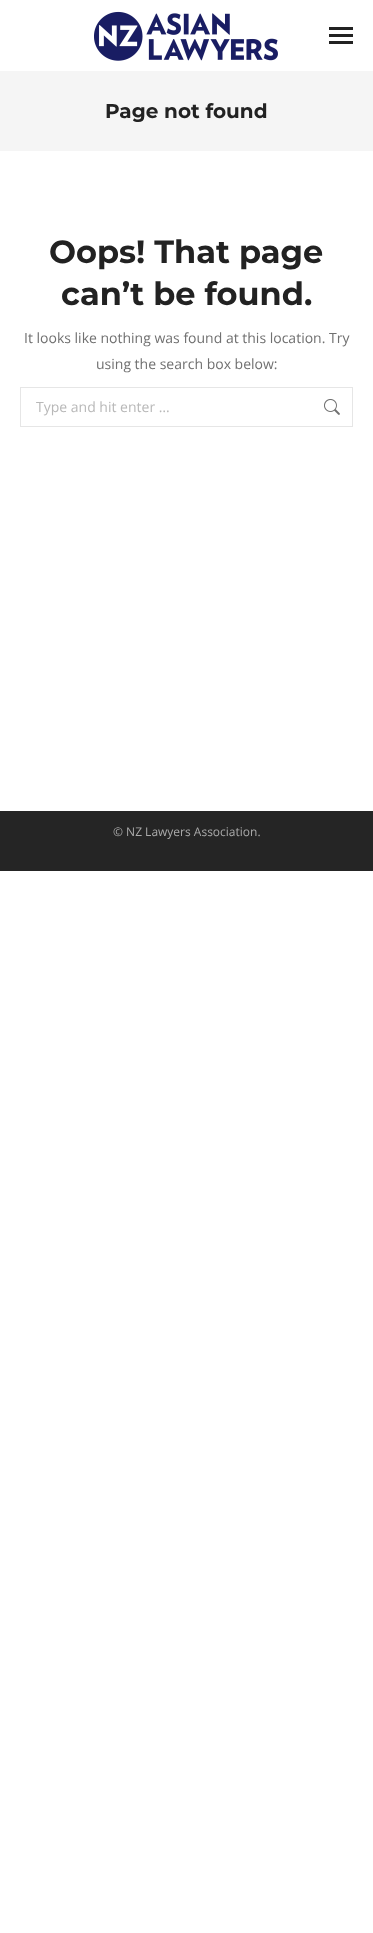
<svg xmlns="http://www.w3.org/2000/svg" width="373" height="1933">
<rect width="100%" height="100%" fill="#fff"/>
<image x="94" y="11" width="184" height="50" href="media/1.png"/>
<rect x="329" y="27" width="24" height="3" fill="#222"/>
<rect x="329" y="34" width="24" height="3" fill="#222"/>
<rect x="329" y="41" width="24" height="3" fill="#222"/>
<rect y="71" width="373" height="80" fill="#f5f5f5"/>
<text x="105" y="118" style="font-family:Montserrat;font-size:20px;font-weight:bold;fill:#222">Page not found</text>
<text x="49" y="263" style="font-family:Montserrat;font-size:32px;font-weight:bold;fill:#222">Oops! That page</text>
<text x="61" y="305" style="font-family:Montserrat;font-size:32px;font-weight:bold;fill:#222">can’t be found.</text>
<text x="24" y="343" style="font-family:Open Sans;font-size:14px;fill:#707070">It looks like nothing was found at this location. Try</text>
<text x="96" y="369" style="font-family:Open Sans;font-size:14px;fill:#707070">using the search box below:</text>
<rect x="20.5" y="387.5" width="332" height="39" fill="none" stroke="#e6e6e6"/>
<text x="36" y="412" style="font-family:Open Sans;font-size:14px;fill:#b8b8b8">Type and hit enter …</text>
<image x="324" y="399" width="16" height="16" href="media/2.png"/>
<rect y="811" width="373" height="60" fill="#252525"/>
<text x="113" y="836" style="font-family:Open Sans;font-size:12px;fill:#aaa">© NZ Lawyers Association.</text>
</svg>
